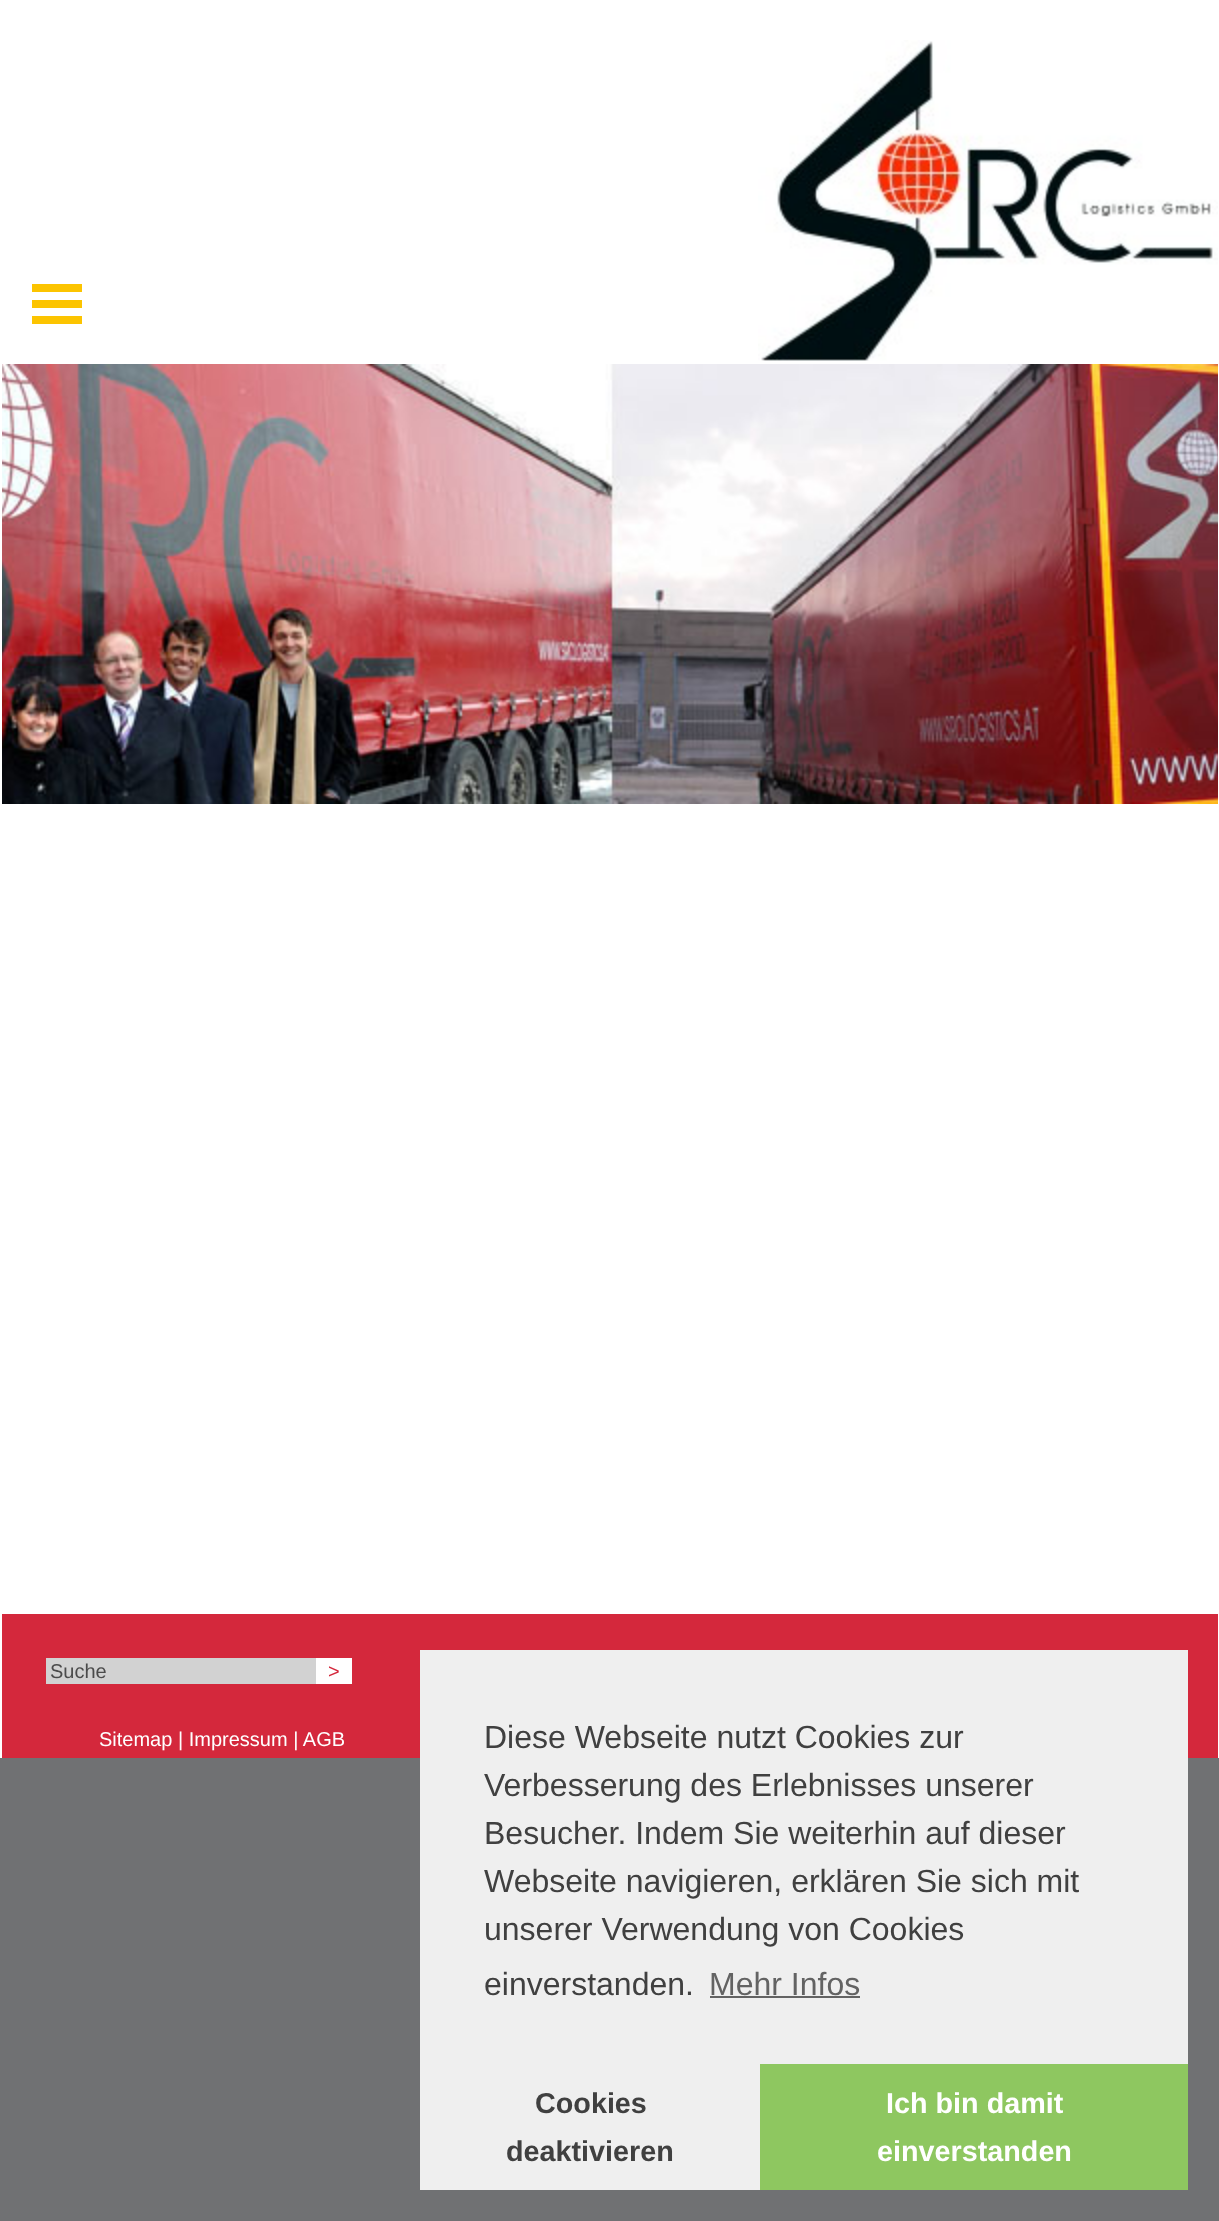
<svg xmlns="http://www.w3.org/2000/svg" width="1219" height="2221">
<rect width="100%" height="100%" fill="#707173"/>
<rect width="1219" height="1758" fill="#fff"/>
<rect x="32" y="284" width="50" height="8" fill="#fcc400"/>
<rect x="32" y="300" width="50" height="8" fill="#fcc400"/>
<rect x="32" y="316" width="50" height="8" fill="#fcc400"/>
<image x="758" y="40" width="460" height="321" href="media/1.png"/>
<image x="2" y="364" width="1216" height="440" href="media/2.png"/>
<rect x="2" y="1614" width="1216" height="144" fill="#d4283c"/>
<rect x="46" y="1658" width="270" height="26" fill="#d2d2d2"/>
<text x="50" y="1678" style="font-family:Liberation Sans;font-size:20px;fill:#4b4b4b">Suche</text>
<rect x="316" y="1658" width="36" height="26" fill="#fff"/>
<text x="328" y="1678" style="font-family:Liberation Sans;font-size:20px;fill:#d4283c">&gt;</text>
<text x="99" y="1746" style="font-family:Liberation Sans;font-size:20px;fill:#fff">Sitemap | Impressum | AGB</text>
<rect x="420" y="1650" width="768" height="540" fill="#efefef"/>
<text x="484" y="1748" style="font-family:Liberation Sans;font-size:32px;fill:#404040">Diese Webseite nutzt Cookies zur</text>
<text x="484" y="1796" style="font-family:Liberation Sans;font-size:32px;fill:#404040">Verbesserung des Erlebnisses unserer</text>
<text x="484" y="1844" style="font-family:Liberation Sans;font-size:32px;fill:#404040">Besucher. Indem Sie weiterhin auf dieser</text>
<text x="484" y="1892" style="font-family:Liberation Sans;font-size:32px;fill:#404040">Webseite navigieren, erklären Sie sich mit</text>
<text x="484" y="1940" style="font-family:Liberation Sans;font-size:32px;fill:#404040">unserer Verwendung von Cookies</text>
<text x="484" y="1995" style="font-family:Liberation Sans;font-size:32px;fill:#404040">einverstanden.</text>
<text x="709" y="1995" style="font-family:Liberation Sans;font-size:32px;fill:#636363">Mehr Infos</text>
<rect x="710" y="1996" width="150" height="2" fill="#636363"/>
<text x="535" y="2113" style="font-family:Liberation Sans;font-size:28.75px;font-weight:bold;fill:#404040">Cookies</text>
<text x="506" y="2161" style="font-family:Liberation Sans;font-size:28.75px;font-weight:bold;fill:#404040">deaktivieren</text>
<rect x="760" y="2064" width="428" height="126" fill="#8ec760"/>
<text x="886" y="2113" style="font-family:Liberation Sans;font-size:28.75px;font-weight:bold;fill:#fff">Ich bin damit</text>
<text x="877" y="2161" style="font-family:Liberation Sans;font-size:28.75px;font-weight:bold;fill:#fff">einverstanden</text>
</svg>
